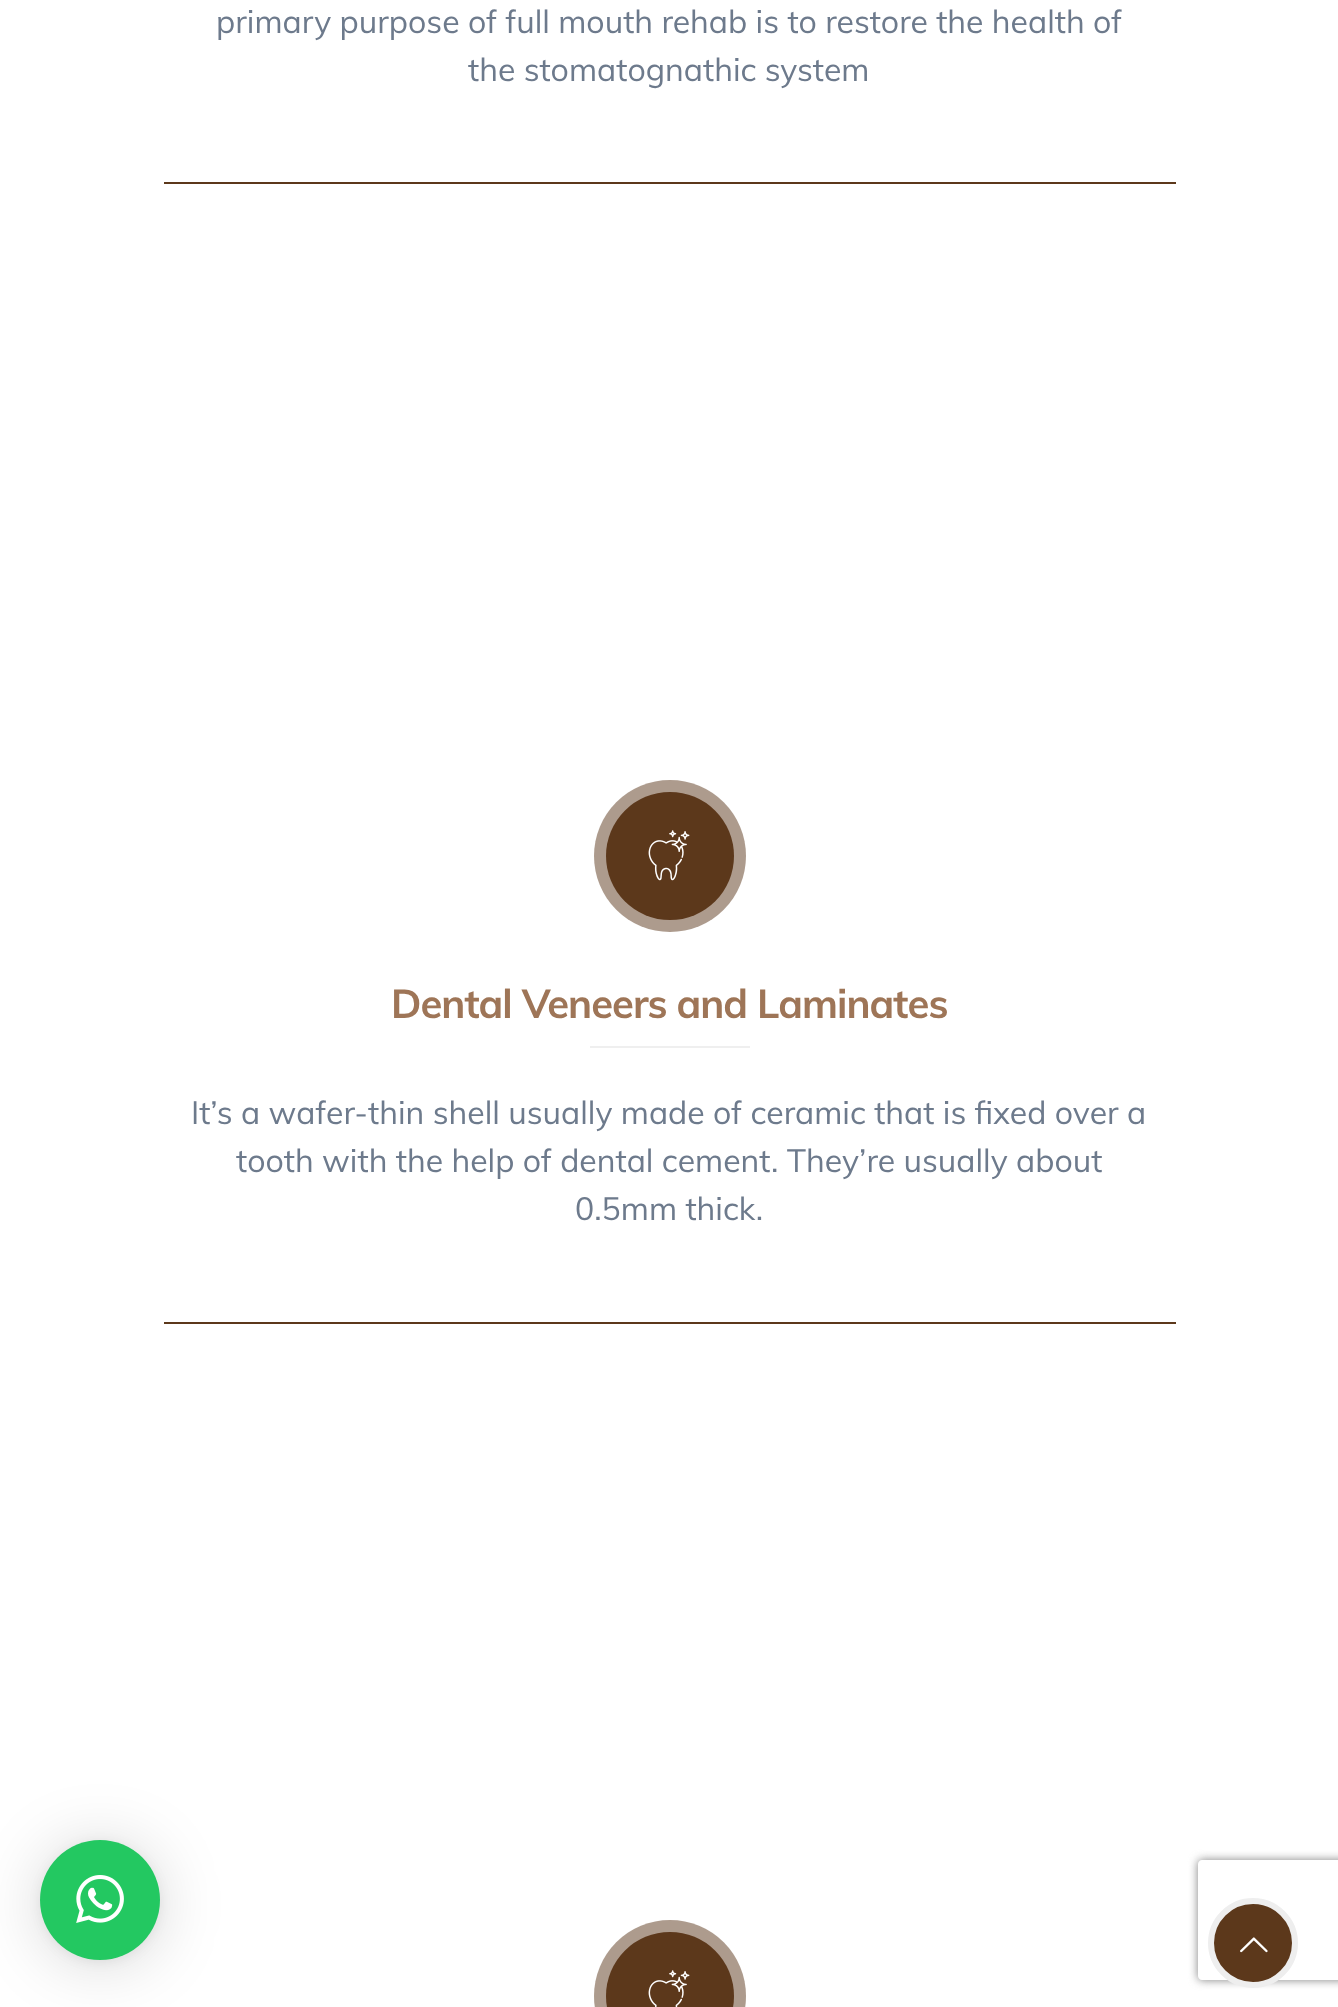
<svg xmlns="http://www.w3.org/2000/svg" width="1338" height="2007">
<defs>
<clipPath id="clip1"><path d="M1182 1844h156v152h-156zm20 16h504c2 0 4 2 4 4v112c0 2-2 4-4 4h-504c-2 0-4-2-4-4v-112c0-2 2-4 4-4z" clip-rule="evenodd"/></clipPath>
</defs>
<rect width="100%" height="100%" fill="#fff"/>
<rect x="164" y="182" width="1012" height="2" fill="#5c381b"/>
<text x="216" y="33" style="font-family:Muli;font-size:32px;fill:#6d7a8c">primary purpose of full mouth rehab is to restore the health of</text>
<text x="468" y="81" style="font-family:Muli;font-size:32px;fill:#6d7a8c">the stomatognathic system</text>
<rect x="164" y="1322" width="1012" height="2" fill="#5c381b"/>
<circle cx="670" cy="856" r="64" fill="#5c381b"/>
<circle cx="670" cy="856" r="76" fill="#5c381b80"/>
<image x="648" y="830" width="42" height="51" href="media/1.png"/>
<text x="391" y="1018" style="font-family:Muli;font-size:40px;font-weight:bold;letter-spacing:-1px;fill:#9e7557">Dental Veneers and Laminates</text>
<rect x="590" y="1046" width="160" height="2" fill="#efefef"/>
<text x="191" y="1124" style="font-family:Muli;font-size:32px;fill:#6d7a8c">It’s a wafer-thin shell usually made of ceramic that is fixed over a</text>
<text x="236" y="1172" style="font-family:Muli;font-size:32px;fill:#6d7a8c">tooth with the help of dental cement. They’re usually about</text>
<text x="575" y="1220" style="font-family:Muli;font-size:32px;fill:#6d7a8c">0.5mm thick.</text>
<circle cx="670" cy="1996" r="64" fill="#5c381b"/>
<circle cx="670" cy="1996" r="76" fill="#5c381b80"/>
<image x="648" y="1970" width="42" height="37" href="media/2.png"/>
<rect x="40" y="1844" width="120" height="120" rx="60" fill="#00000029" filter="blur(32px)"/>
<rect x="40" y="1842" width="120" height="120" rx="60" fill="#0000000f" filter="blur(6px)"/>
<circle cx="100" cy="1900" r="60" fill="#23c861"/>
<image x="76" y="1875" width="48" height="48" href="media/3.png"/>
<g clip-path="url(#clip1)">
<rect x="1198" y="1860" width="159" height="120" rx="4" fill="#808080" filter="blur(5px)"/>
</g>
<circle cx="1253" cy="1943" r="42" fill="#5c381b" stroke="#eee" stroke-width="6"/>
<image x="1240" y="1937" width="28" height="16" href="media/4.png"/>
</svg>
